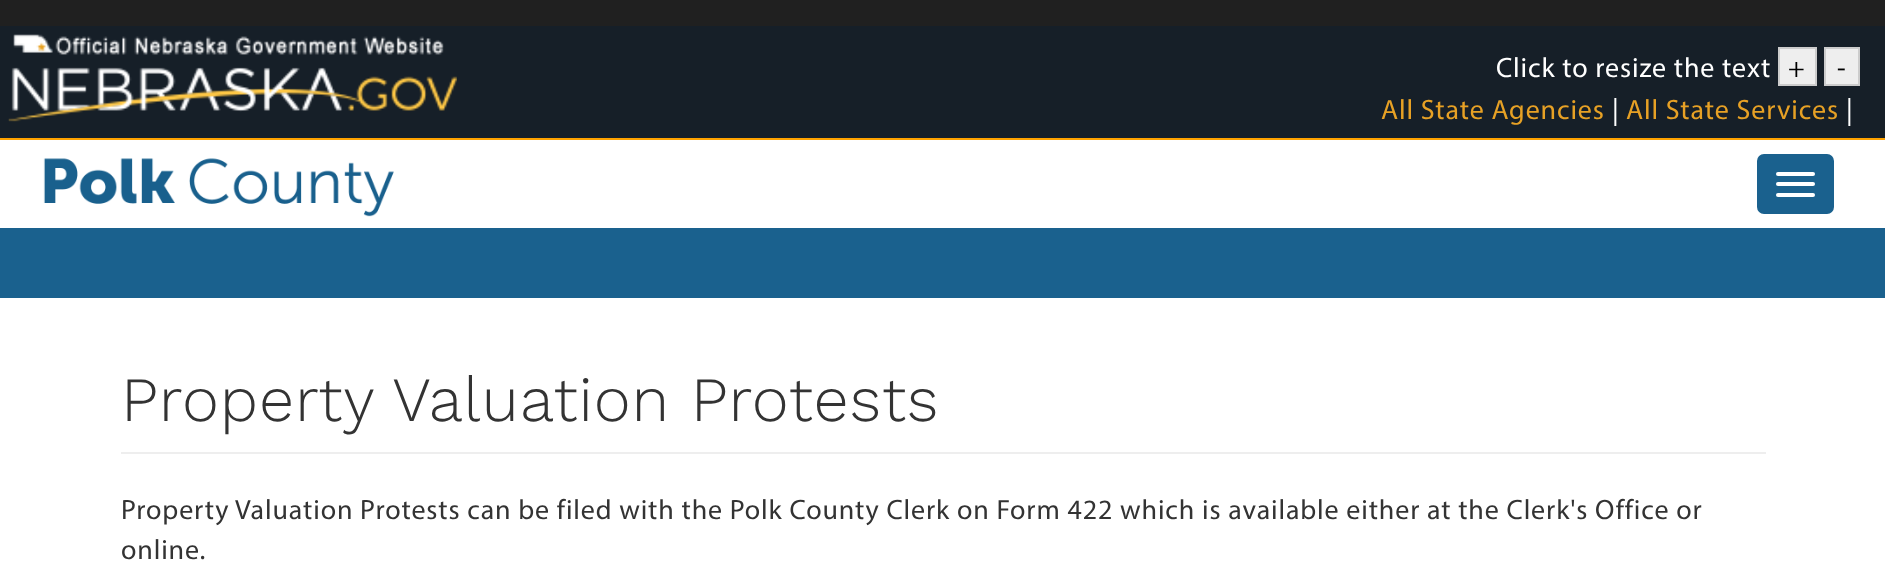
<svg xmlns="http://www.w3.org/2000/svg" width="1885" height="563">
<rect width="100%" height="100%" fill="#202020"/>
<rect y="26" width="1885" height="112" fill="#161f28"/>
<rect y="138" width="1885" height="2" fill="#ffa300"/>
<image x="13" y="34" width="431" height="21" href="media/1.png"/>
<image x="8" y="67" width="449" height="55" href="media/2.png"/>
<text x="1496" y="77" style="font-family:Myriad;font-size:28px;letter-spacing:0.88px;fill:#fff">Click to resize the text</text>
<rect x="1779" y="48" width="37" height="37" fill="#eee" stroke="#ccc" stroke-width="2"/>
<text x="1788" y="77" style="font-family:Myriad;font-size:28px;letter-spacing:0.88px;fill:#000">+</text>
<rect x="1825" y="48" width="34" height="37" fill="#eee" stroke="#ccc" stroke-width="2"/>
<text x="1837" y="77" style="font-family:Myriad;font-size:28px;letter-spacing:0.88px;fill:#000">-</text>
<text x="1381" y="119" style="font-family:Myriad;font-size:28px;letter-spacing:0.88px;fill:#e7a125">All State Agencies</text>
<text x="1612" y="119" style="font-family:Myriad;font-size:28px;letter-spacing:0.88px;fill:#fff">|</text>
<text x="1626" y="119" style="font-family:Myriad;font-size:28px;letter-spacing:0.88px;fill:#e7a125">All State Services</text>
<text x="1846" y="119" style="font-family:Myriad;font-size:28px;letter-spacing:0.88px;fill:#fff">|</text>
<rect y="140" width="1885" height="88" fill="#fff"/>
<image x="43" y="158" width="351" height="59" href="media/3.png"/>
<rect x="1758" y="155" width="75" height="58" rx="6" fill="#1a618e" stroke="#1a618e" stroke-width="2"/>
<rect x="1776" y="172" width="39" height="4" rx="2" fill="#fff"/>
<rect x="1776" y="182" width="39" height="4" rx="2" fill="#fff"/>
<rect x="1776" y="193" width="39" height="4" rx="2" fill="#fff"/>
<rect y="228" width="1885" height="70" fill="#1a618e"/>
<rect y="298" width="1885" height="265" fill="#fff"/>
<rect x="121" y="452" width="1645" height="2" fill="#eee"/>
<text x="121" y="421" style="font-family:Work Sans;font-size:63px;font-weight:300;letter-spacing:0.88px;fill:#333">Property Valuation Protests</text>
<text x="121" y="519" style="font-family:Myriad;font-size:28px;letter-spacing:0.88px;fill:#333">Property Valuation Protests can be filed with the Polk County Clerk on Form 422 which is available either at the Clerk's Office or</text>
<text x="121" y="559" style="font-family:Myriad;font-size:28px;letter-spacing:0.88px;fill:#333">online.</text>
</svg>
